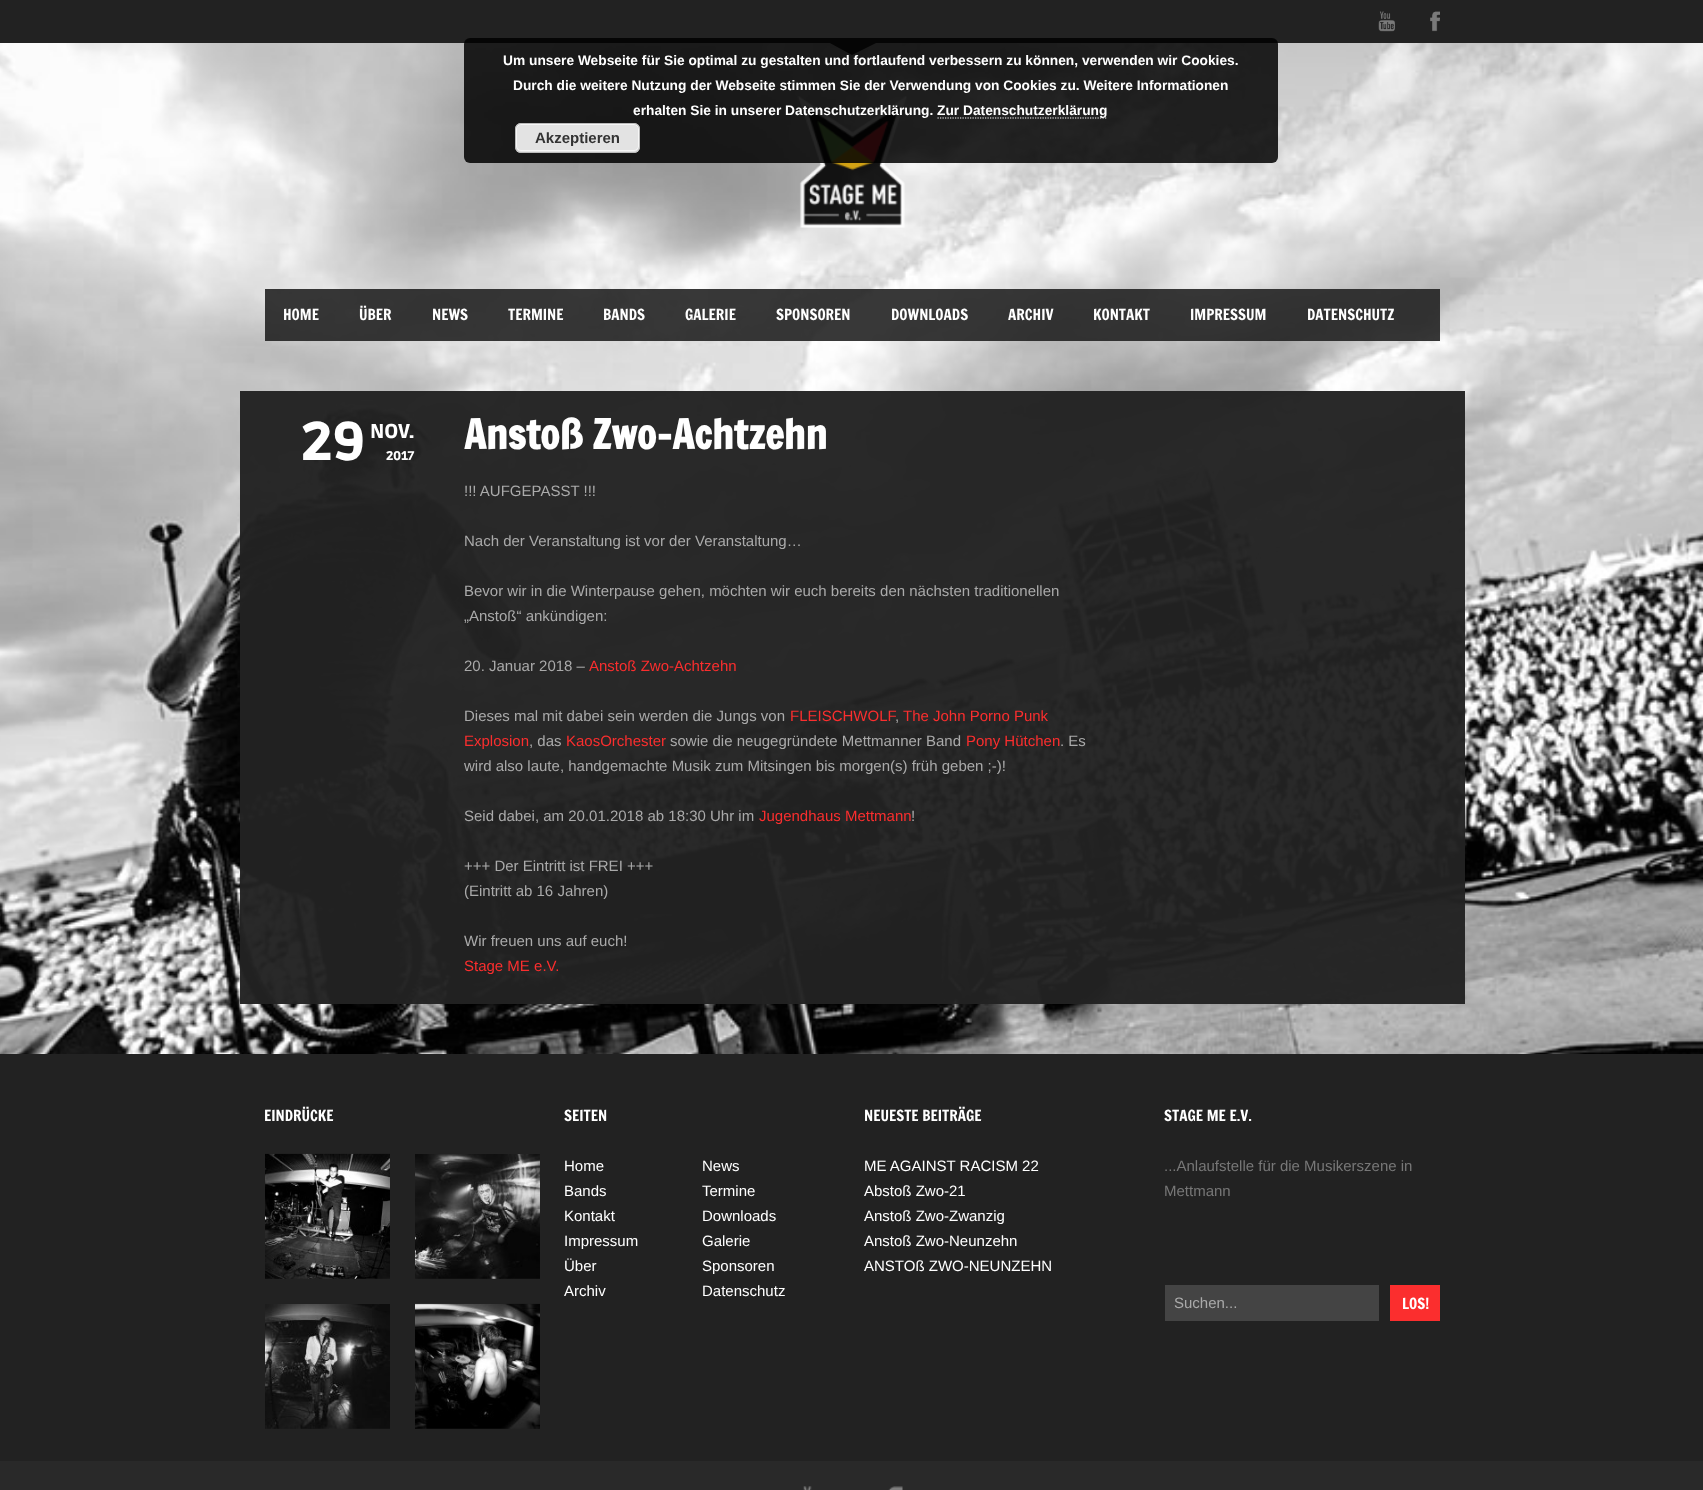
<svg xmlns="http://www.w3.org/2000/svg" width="1703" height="1490">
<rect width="100%" height="100%" fill="#fff"/>
<image x="0" y="43" width="1703" height="1011" href="media/1.png"/>
<path d="M828 42h50l-26 13z" fill="#222"/>
<rect width="1703" height="43" fill="#222"/>
<image x="797" y="96" width="110" height="132" href="media/4.png"/>
<rect x="464" y="38" width="814" height="125" rx="6" fill="#000000d9"/>
<text x="503" y="65" style="font-family:Liberation Sans;font-size:13.75px;font-weight:bold;fill:#fff">Um unsere Webseite für Sie optimal zu gestalten und fortlaufend verbessern zu können, verwenden wir Cookies.</text>
<text x="513" y="90" style="font-family:Liberation Sans;font-size:13.75px;font-weight:bold;fill:#fff">Durch die weitere Nutzung der Webseite stimmen Sie der Verwendung von Cookies zu. Weitere Informationen</text>
<text x="633" y="115" style="font-family:Liberation Sans;font-size:13.75px;font-weight:bold;fill:#fff">erhalten Sie in unserer Datenschutzerklärung.</text>
<path d="M937.5 118h170" fill="none" stroke="#fff" stroke-width="1.2" stroke-dasharray="1.25 1.25"/>
<text x="937" y="115" style="font-family:Liberation Sans;font-size:13.75px;font-weight:bold;fill:#fff">Zur Datenschutzerklärung</text>
<rect x="515" y="123" width="125" height="30" rx="6" fill="#e3e3e3"/>
<rect x="516.5" y="124.5" width="122" height="26" rx="4.5" fill="none" stroke="#f6f6f6"/>
<rect x="515.5" y="123.5" width="124" height="29" rx="5.5" fill="none" stroke="#bbb"/>
<text x="535" y="143" style="font-family:Liberation Sans;font-size:15px;font-weight:bold;fill:#333">Akzeptieren</text>
<image x="1378" y="11" width="17" height="21" href="media/2.png"/>
<image x="1430" y="11" width="10" height="21" href="media/3.png"/>
<rect x="265" y="289" width="1175" height="52" fill="#222222e6"/>
<text x="283" y="320" style="font-family:Francois One;font-size:15px;fill:#fff">HOME</text>
<text x="359" y="320" style="font-family:Francois One;font-size:15px;fill:#fff">ÜBER</text>
<text x="432" y="320" style="font-family:Francois One;font-size:15px;fill:#fff">NEWS</text>
<text x="508" y="320" style="font-family:Francois One;font-size:15px;fill:#fff">TERMINE</text>
<text x="603" y="320" style="font-family:Francois One;font-size:15px;fill:#fff">BANDS</text>
<text x="685" y="320" style="font-family:Francois One;font-size:15px;fill:#fff">GALERIE</text>
<text x="776" y="320" style="font-family:Francois One;font-size:15px;fill:#fff">SPONSOREN</text>
<text x="891" y="320" style="font-family:Francois One;font-size:15px;fill:#fff">DOWNLOADS</text>
<text x="1008" y="320" style="font-family:Francois One;font-size:15px;fill:#fff">ARCHIV</text>
<text x="1093" y="320" style="font-family:Francois One;font-size:15px;fill:#fff">KONTAKT</text>
<text x="1190" y="320" style="font-family:Francois One;font-size:15px;fill:#fff">IMPRESSUM</text>
<text x="1307" y="320" style="font-family:Francois One;font-size:15px;fill:#fff">DATENSCHUTZ</text>
<rect x="240" y="391" width="1225" height="613" fill="#222222f7"/>
<text x="301" y="460" style="font-family:Ruda;font-size:54px;font-weight:900;fill:#fff">29</text>
<text x="370" y="438" style="font-family:Ruda;font-size:20px;font-weight:900;fill:#fff">NOV.</text>
<text x="386" y="460" style="font-family:Ruda;font-size:12.5px;font-weight:900;fill:#fff">2017</text>
<text x="464" y="449" style="font-family:Francois One;font-size:40px;font-weight:bold;fill:#fff">Anstoß Zwo-Achtzehn</text>
<text x="464" y="496" style="font-family:Liberation Sans;font-size:15px;fill:#aaa">!!! AUFGEPASST !!!</text>
<text x="464" y="546" style="font-family:Liberation Sans;font-size:15px;fill:#aaa">Nach der Veranstaltung ist vor der Veranstaltung…</text>
<text x="464" y="596" style="font-family:Liberation Sans;font-size:15px;fill:#aaa">Bevor wir in die Winterpause gehen, möchten wir euch bereits den nächsten traditionellen</text>
<text x="464" y="621" style="font-family:Liberation Sans;font-size:15px;fill:#aaa">„Anstoß“ ankündigen:</text>
<text x="464" y="671" style="font-family:Liberation Sans;font-size:15px;fill:#aaa">20. Januar 2018 –</text>
<text x="589" y="671" style="font-family:Liberation Sans;font-size:15px;fill:#fb2e2e">Anstoß Zwo-Achtzehn</text>
<text x="464" y="721" style="font-family:Liberation Sans;font-size:15px;fill:#aaa">Dieses mal mit dabei sein werden die Jungs von</text>
<text x="790" y="721" style="font-family:Liberation Sans;font-size:15px;fill:#fb2e2e">FLEISCHWOLF</text>
<text x="895" y="721" style="font-family:Liberation Sans;font-size:15px;fill:#aaa">,</text>
<text x="903" y="721" style="font-family:Liberation Sans;font-size:15px;fill:#fb2e2e">The John Porno Punk</text>
<text x="464" y="746" style="font-family:Liberation Sans;font-size:15px;fill:#fb2e2e">Explosion</text>
<text x="529" y="746" style="font-family:Liberation Sans;font-size:15px;fill:#aaa">, das</text>
<text x="566" y="746" style="font-family:Liberation Sans;font-size:15px;fill:#fb2e2e">KaosOrchester</text>
<text x="670" y="746" style="font-family:Liberation Sans;font-size:15px;fill:#aaa">sowie die neugegründete Mettmanner Band</text>
<text x="966" y="746" style="font-family:Liberation Sans;font-size:15px;fill:#fb2e2e">Pony Hütchen</text>
<text x="1060" y="746" style="font-family:Liberation Sans;font-size:15px;fill:#aaa">. Es</text>
<text x="464" y="771" style="font-family:Liberation Sans;font-size:15px;fill:#aaa">wird also laute, handgemachte Musik zum Mitsingen bis morgen(s) früh geben ;-)!</text>
<text x="464" y="821" style="font-family:Liberation Sans;font-size:15px;fill:#aaa">Seid dabei, am 20.01.2018 ab 18:30 Uhr im</text>
<text x="759" y="821" style="font-family:Liberation Sans;font-size:15px;fill:#fb2e2e">Jugendhaus Mettmann</text>
<text x="911" y="821" style="font-family:Liberation Sans;font-size:15px;fill:#aaa">!</text>
<text x="464" y="871" style="font-family:Liberation Sans;font-size:15px;fill:#aaa">+++ Der Eintritt ist FREI +++</text>
<text x="464" y="896" style="font-family:Liberation Sans;font-size:15px;fill:#aaa">(Eintritt ab 16 Jahren)</text>
<text x="464" y="946" style="font-family:Liberation Sans;font-size:15px;fill:#aaa">Wir freuen uns auf euch!</text>
<text x="464" y="971" style="font-family:Liberation Sans;font-size:15px;fill:#fb2e2e">Stage ME e.V.</text>
<rect y="1054" width="1703" height="407" fill="#222"/>
<text x="264" y="1121" style="font-family:Francois One;font-size:15px;fill:#fff">EINDRÜCKE</text>
<image x="265" y="1153" width="125" height="126" href="media/5.png"/>
<image x="415" y="1154" width="125" height="125" href="media/6.png"/>
<image x="265" y="1304" width="125" height="125" href="media/7.png"/>
<image x="415" y="1303" width="125" height="126" href="media/8.png"/>
<text x="564" y="1121" style="font-family:Francois One;font-size:15px;fill:#fff">SEITEN</text>
<text x="564" y="1171" style="font-family:Liberation Sans;font-size:15px;fill:#fff">Home</text>
<text x="702" y="1171" style="font-family:Liberation Sans;font-size:15px;fill:#fff">News</text>
<text x="564" y="1196" style="font-family:Liberation Sans;font-size:15px;fill:#fff">Bands</text>
<text x="702" y="1196" style="font-family:Liberation Sans;font-size:15px;fill:#fff">Termine</text>
<text x="564" y="1221" style="font-family:Liberation Sans;font-size:15px;fill:#fff">Kontakt</text>
<text x="702" y="1221" style="font-family:Liberation Sans;font-size:15px;fill:#fff">Downloads</text>
<text x="564" y="1246" style="font-family:Liberation Sans;font-size:15px;fill:#fff">Impressum</text>
<text x="702" y="1246" style="font-family:Liberation Sans;font-size:15px;fill:#fff">Galerie</text>
<text x="564" y="1271" style="font-family:Liberation Sans;font-size:15px;fill:#fff">Über</text>
<text x="702" y="1271" style="font-family:Liberation Sans;font-size:15px;fill:#fff">Sponsoren</text>
<text x="564" y="1296" style="font-family:Liberation Sans;font-size:15px;fill:#fff">Archiv</text>
<text x="702" y="1296" style="font-family:Liberation Sans;font-size:15px;fill:#fff">Datenschutz</text>
<text x="864" y="1121" style="font-family:Francois One;font-size:15px;fill:#fff">NEUESTE BEITRÄGE</text>
<text x="864" y="1171" style="font-family:Liberation Sans;font-size:15px;fill:#fff">ME AGAINST RACISM 22</text>
<text x="864" y="1196" style="font-family:Liberation Sans;font-size:15px;fill:#fff">Abstoß Zwo-21</text>
<text x="864" y="1221" style="font-family:Liberation Sans;font-size:15px;fill:#fff">Anstoß Zwo-Zwanzig</text>
<text x="864" y="1246" style="font-family:Liberation Sans;font-size:15px;fill:#fff">Anstoß Zwo-Neunzehn</text>
<text x="864" y="1271" style="font-family:Liberation Sans;font-size:15px;fill:#fff">ANSTOß ZWO-NEUNZEHN</text>
<text x="1164" y="1121" style="font-family:Francois One;font-size:15px;fill:#fff">STAGE ME E.V.</text>
<text x="1164" y="1171" style="font-family:Liberation Sans;font-size:15px;fill:#777">...Anlaufstelle für die Musikerszene in</text>
<text x="1164" y="1196" style="font-family:Liberation Sans;font-size:15px;fill:#777">Mettmann</text>
<rect x="1165" y="1285" width="214" height="36" fill="#444"/>
<text x="1174" y="1308" style="font-family:Liberation Sans;font-size:15px;fill:#aaa">Suchen...</text>
<rect x="1390" y="1285" width="50" height="36" fill="#fb2e2e"/>
<text x="1402" y="1309" style="font-family:Francois One;font-size:15px;fill:#fff">LOS!</text>
<rect y="1461" width="1703" height="29" fill="#292929"/>
<image x="803" y="1486" width="9" height="4" href="media/9.png"/>
<image x="888" y="1486" width="15" height="4" href="media/10.png"/>
</svg>
